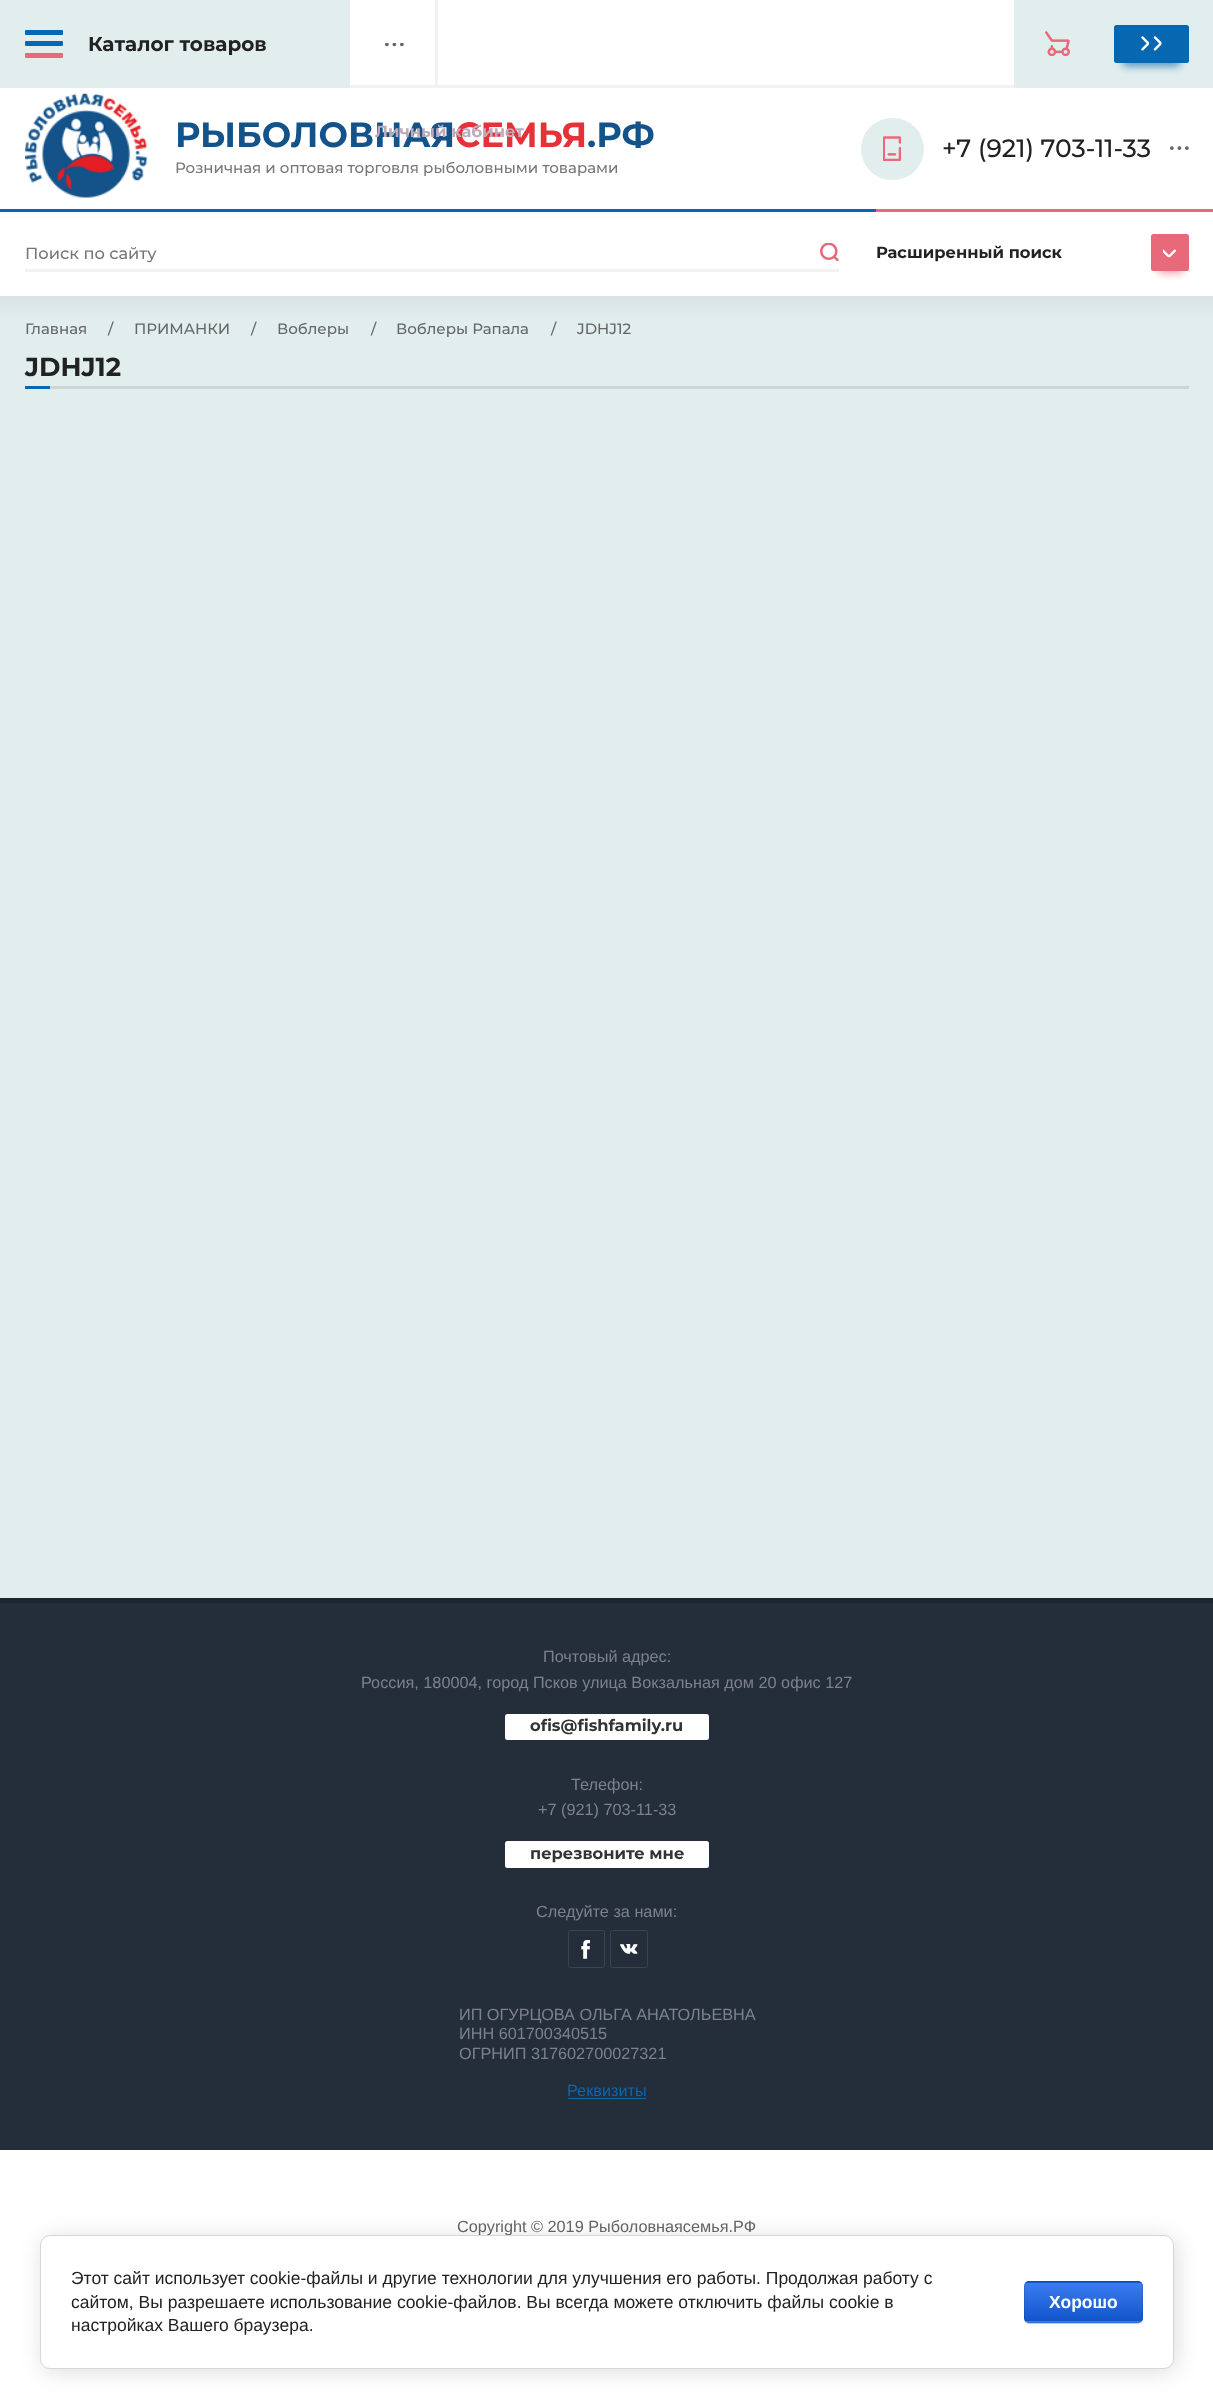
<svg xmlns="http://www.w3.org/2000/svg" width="1213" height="2408">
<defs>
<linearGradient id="g1" gradientUnits="userSpaceOnUse" x1="607" y1="321" x2="607" y2="296"><stop offset="0" stop-color="#e2eeee"/><stop offset="1" stop-color="#d9e4e4"/></linearGradient>
<clipPath id="clip1"><rect x="1024" y="2281" width="119" height="42" rx="5"/></clipPath>
<linearGradient id="g2" gradientUnits="userSpaceOnUse" x1="1083" y1="2244" x2="1083" y2="2283"><stop offset="0" stop-color="#3b7cef"/><stop offset="1" stop-color="#15c"/></linearGradient>
<linearGradient id="g3" gradientUnits="userSpaceOnUse" x1="1083" y1="2283" x2="1083" y2="2321"><stop offset="0" stop-color="#3b7cef"/><stop offset="1" stop-color="#15c"/></linearGradient>
<linearGradient id="g4" gradientUnits="userSpaceOnUse" x1="1083" y1="2321" x2="1083" y2="2360"><stop offset="0" stop-color="#3b7cef"/><stop offset="1" stop-color="#15c"/></linearGradient>
</defs>
<rect width="100%" height="100%" fill="#fff"/>
<rect x="350" y="85" width="664" height="3" fill="#f2f2f2"/>
<rect width="350" height="88" fill="#e2eeee"/>
<rect x="25" y="41" width="38" height="5" rx="1" fill="#0768b1"/>
<rect x="25" y="30" width="38" height="5" rx="1" fill="#0768b1"/>
<rect x="25" y="53" width="38" height="5" rx="1" fill="#e86979"/>
<text x="88" y="51" style="font-family:Montserrat;font-size:20px;font-weight:bold;fill:#222">Каталог товаров</text>
<rect x="1014" width="199" height="88" fill="#e2eeee"/>
<image x="1045" y="31" width="25" height="25" href="media/1.png"/>
<rect x="1123" y="46" width="57" height="20" fill="#0768b1b3" filter="blur(4.5px)"/>
<rect x="1114" y="25" width="75" height="38" rx="2.5" fill="#0768b1"/>
<image x="1141" y="36" width="21" height="15" href="media/2.png"/>
<image x="385" y="43" width="19" height="4" href="media/3.png"/>
<rect x="435" width="3" height="85" fill="#f2f2f2"/>
<text x="175" y="147" style="font-family:Montserrat;font-size:35px;font-weight:bold;fill:#13538a">РЫБОЛОВНАЯ</text>
<text x="455" y="147" style="font-family:Montserrat;font-size:35px;font-weight:bold;fill:#e53137">СЕМЬЯ</text>
<text x="375" y="137" style="font-family:Montserrat;font-size:16.25px;font-weight:bold;fill:#beaab9">Личный кабинет</text>
<image x="25" y="93" width="123" height="105" href="media/4.png"/>
<text x="587" y="147" style="font-family:Montserrat;font-size:35px;font-weight:bold;fill:#13538a">.РФ</text>
<text x="175" y="173" style="font-family:Montserrat;font-size:15px;font-weight:500;fill:#777">Розничная и оптовая торговля рыболовными товарами</text>
<rect x="861" y="118" width="63" height="62" rx="31" fill="#e2eeee"/>
<image x="883" y="136" width="18" height="25" href="media/5.png"/>
<text x="942" y="157" style="font-family:Montserrat;font-size:25px;font-weight:500;fill:#222">+7 (921) 703-11-33</text>
<image x="1170" y="146" width="19" height="4" href="media/6.png"/>
<rect y="209" width="876" height="3" fill="#0768b1"/>
<rect x="25" y="269" width="814" height="3" fill="#f2f2f2"/>
<text x="25" y="259" style="font-family:Montserrat;font-size:16.25px;font-weight:500;fill:#777">Поиск по сайту</text>
<image x="820" y="243" width="19" height="18" href="media/7.png"/>
<rect x="876" y="209" width="337" height="3" fill="#e86979"/>
<text x="876" y="258" style="font-family:Montserrat;font-size:16.25px;font-weight:bold;fill:#222">Расширенный поиск</text>
<rect x="1158" y="248" width="25" height="25" fill="#e86979b3" filter="blur(4px)"/>
<rect x="1151" y="234" width="38" height="37" rx="2.5" fill="#e86979"/>
<image x="1163" y="249" width="14" height="9" href="media/8.png"/>
<rect y="321" width="1213" height="1277" fill="#e2eeee"/>
<rect y="296" width="1213" height="25" fill="url(#g1)"/>
<text x="25" y="334" style="font-family:Montserrat;font-size:15px;font-weight:500;fill:#666">Главная</text>
<text x="108" y="334" style="font-family:Montserrat;font-size:15px;font-weight:500;fill:#666">/</text>
<text x="134" y="334" style="font-family:Montserrat;font-size:15px;font-weight:500;fill:#666">ПРИМАНКИ</text>
<text x="251" y="334" style="font-family:Montserrat;font-size:15px;font-weight:500;fill:#666">/</text>
<text x="277" y="334" style="font-family:Montserrat;font-size:15px;font-weight:500;fill:#666">Воблеры</text>
<text x="371" y="334" style="font-family:Montserrat;font-size:15px;font-weight:500;fill:#666">/</text>
<text x="396" y="334" style="font-family:Montserrat;font-size:15px;font-weight:500;fill:#666">Воблеры Рапала</text>
<text x="551" y="334" style="font-family:Montserrat;font-size:15px;font-weight:500;fill:#666">/</text>
<text x="577" y="334" style="font-family:Montserrat;font-size:15px;font-weight:500;fill:#666">JDHJ12</text>
<rect x="50" y="386" width="1139" height="3" fill="#cbd6d6"/>
<text x="25" y="376" style="font-family:Montserrat;font-size:26px;font-weight:bold;fill:#222">JDHJ12</text>
<rect x="25" y="386" width="25" height="3" fill="#0768b1"/>
<rect y="1603" width="1213" height="547" fill="#242e3b"/>
<rect y="1598" width="1213" height="5" fill="#1d252f"/>
<text x="543" y="1662" style="font-family:Liberation Sans;font-size:16.25px;fill:#7c8289">Почтовый адрес:</text>
<text x="361" y="1688" style="font-family:Liberation Sans;font-size:16.25px;fill:#7c8289">Россия, 180004, город Псков улица Вокзальная дом 20 офис 127</text>
<rect x="505" y="1714" width="204" height="26" rx="2.5" fill="#fff"/>
<text x="530" y="1731" style="font-family:Montserrat;font-size:16.25px;font-weight:bold;fill:#333">ofis@fishfamily.ru</text>
<text x="571" y="1790" style="font-family:Liberation Sans;font-size:16.25px;fill:#7c8289">Телефон:</text>
<text x="538" y="1815" style="font-family:Liberation Sans;font-size:16.25px;fill:#7c8289">+7 (921) 703-11-33</text>
<rect x="505" y="1841" width="204" height="27" rx="2.5" fill="#fff"/>
<text x="530" y="1859" style="font-family:Montserrat;font-size:16.25px;font-weight:bold;fill:#333">перезвоните мне</text>
<text x="536" y="1917" style="font-family:Liberation Sans;font-size:16.25px;fill:#7c8289">Следуйте за нами:</text>
<rect x="568.5" y="1930.5" width="36" height="37" rx="2" fill="none" stroke="#3a434f"/>
<image x="581" y="1940" width="9" height="19" href="media/9.png"/>
<rect x="610.5" y="1930.5" width="37" height="37" rx="2" fill="none" stroke="#3a434f"/>
<image x="620" y="1944" width="18" height="10" href="media/10.png"/>
<text x="459" y="2020" style="font-family:Liberation Sans;font-size:16.25px;fill:#7c8289">ИП ОГУРЦОВА ОЛЬГА АНАТОЛЬЕВНА</text>
<text x="459" y="2039" style="font-family:Liberation Sans;font-size:16.25px;fill:#7c8289">ИНН 601700340515</text>
<text x="459" y="2059" style="font-family:Liberation Sans;font-size:16.25px;fill:#7c8289">ОГРНИП 317602700027321</text>
<text x="567" y="2096" style="font-family:Liberation Sans;font-size:16.25px;fill:#0768b1">Реквизиты</text>
<rect x="568" y="2098" width="78" height="1" fill="#0768b1"/>
<text x="457" y="2232" style="font-family:Liberation Sans;font-size:16.25px;fill:#666">Copyright © 2019 Рыболовнаясемья.РФ</text>
<rect x="43" y="2238" width="1133" height="133" rx="10" fill="#00000024" filter="blur(11px)"/>
<rect x="40.5" y="2235.5" width="1133" height="133" rx="9.5" fill="#fff" stroke="#d6d6d6"/>
<text x="71" y="2284" style="font-family:Liberation Sans;font-size:17.5px;fill:#222">Этот сайт использует cookie-файлы и другие технологии для улучшения его работы. Продолжая работу с</text>
<text x="71" y="2308" style="font-family:Liberation Sans;font-size:17.5px;fill:#222">сайтом, Вы разрешаете использование cookie-файлов. Вы всегда можете отключить файлы cookie в</text>
<text x="71" y="2331" style="font-family:Liberation Sans;font-size:17.5px;fill:#222">настройках Вашего браузера.</text>
<rect x="1024" y="2283" width="119" height="41" rx="5" fill="#00000033" filter="blur(0.5px)"/>
<g clip-path="url(#clip1)">
<rect x="1024" y="2281" width="119" height="2" fill="url(#g2)"/>
<rect x="1024" y="2283" width="119" height="38" fill="url(#g3)"/>
<rect x="1024" y="2321" width="119" height="2" fill="url(#g4)"/>
</g>
<rect x="1024.5" y="2281.5" width="118" height="41" rx="4.5" fill="none" stroke="#0000001a"/>
<text x="1049" y="2308" style="font-family:Liberation Sans;font-size:17.5px;font-weight:bold;fill:#fff">Хорошо</text>
</svg>
